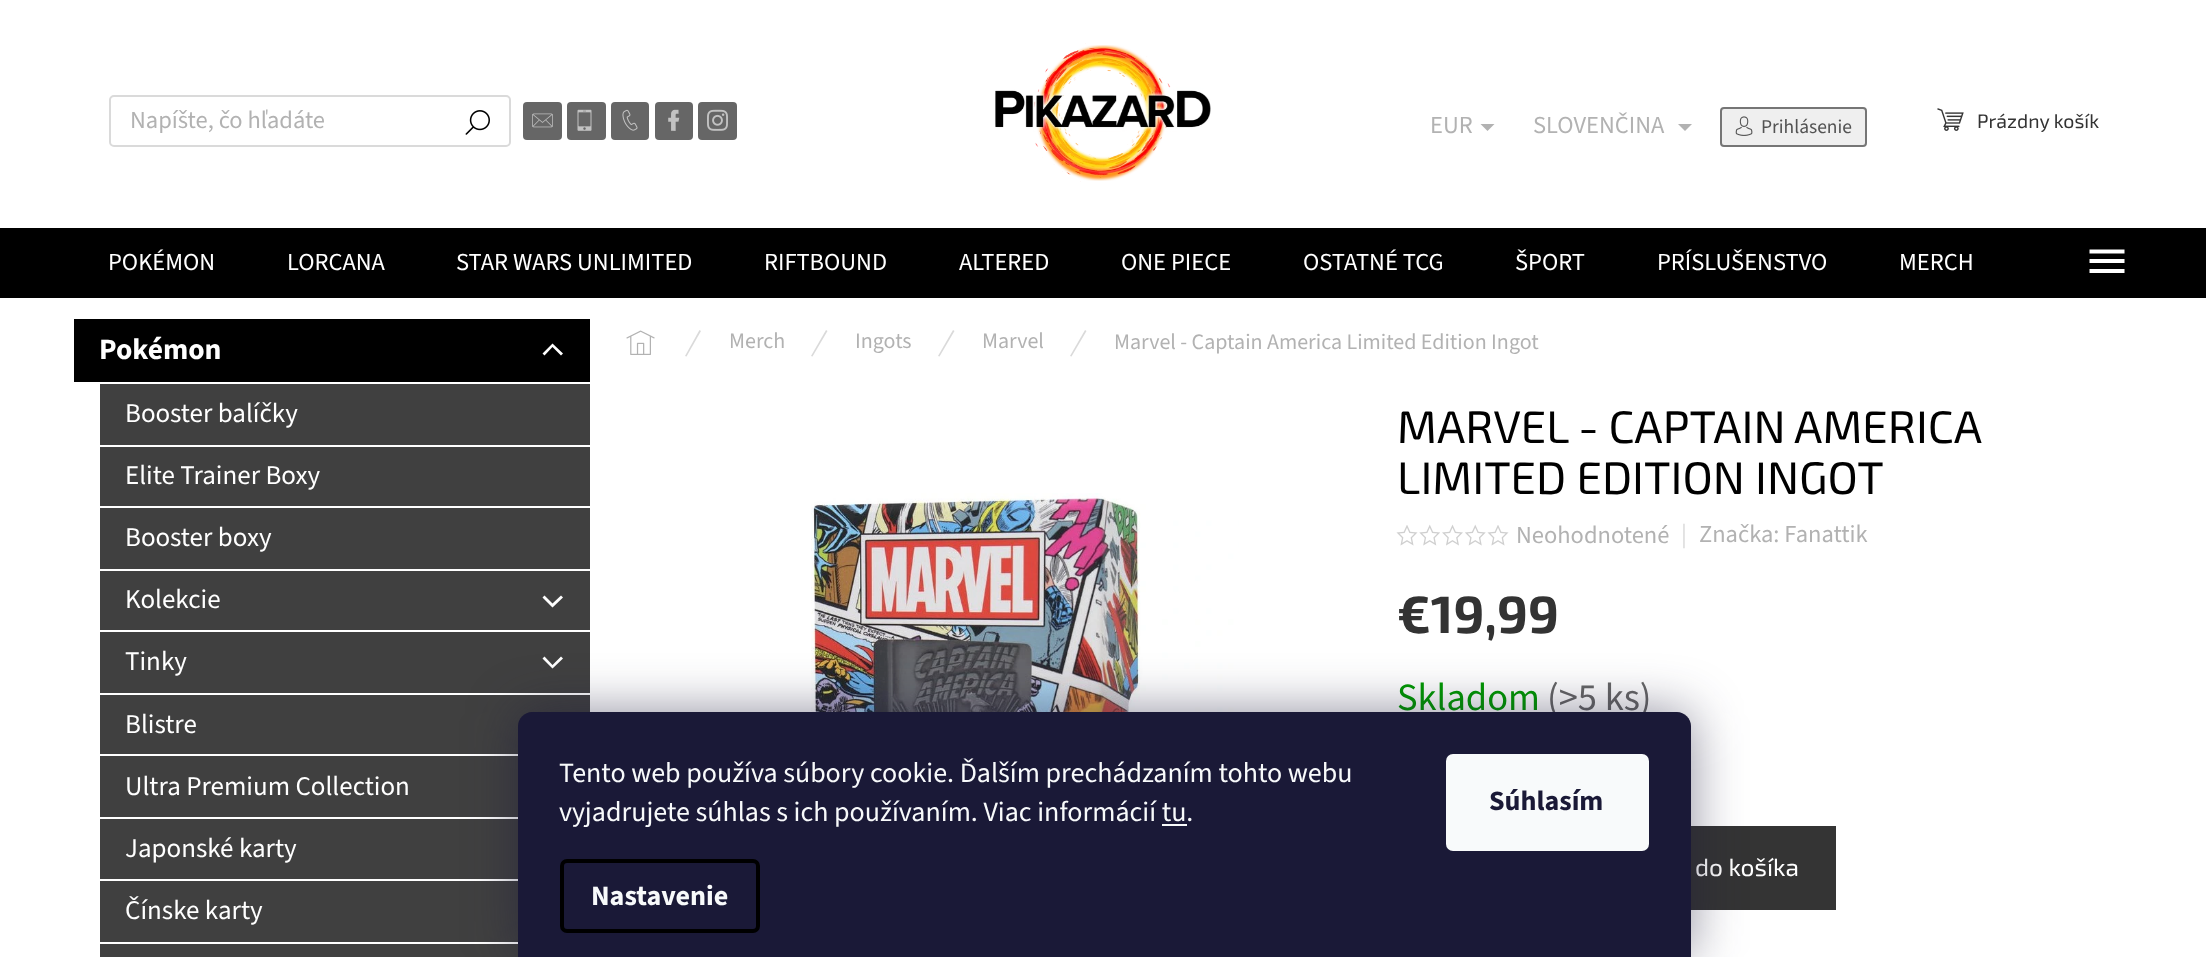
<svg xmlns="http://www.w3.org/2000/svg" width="2206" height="957">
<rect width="100%" height="100%" fill="#fff"/>
<rect y="228" width="2206" height="70" fill="#000"/>
<rect x="110" y="96" width="400" height="50" rx="4" fill="none" stroke="#dadada" stroke-width="2"/>
<text x="130" y="128" style="font-family:'Source Sans 3';font-size:24.5px;fill:#b2b2b2">Napíšte, čo hľadáte</text>
<image x="465" y="110" width="25" height="25" href="media/1.png"/>
<rect x="523" y="102" width="39" height="38" rx="4" fill="#666"/>
<image x="532" y="113" width="21" height="15" href="media/2.png"/>
<rect x="567" y="102" width="39" height="38" rx="4" fill="#666"/>
<image x="577" y="109" width="15" height="22" href="media/3.png"/>
<rect x="611" y="102" width="38" height="38" rx="4" fill="#666"/>
<image x="622" y="109" width="16" height="22" href="media/4.png"/>
<rect x="655" y="102" width="38" height="38" rx="4" fill="#666"/>
<image x="668" y="109" width="12" height="22" href="media/5.png"/>
<rect x="698" y="102" width="39" height="38" rx="4" fill="#666"/>
<image x="707" y="109" width="21" height="22" href="media/6.png"/>
<image x="995" y="43" width="216" height="139" href="media/7.png"/>
<image x="1937" y="108" width="27" height="23" href="media/8.png"/>
<text x="1977" y="128" style="font-family:'Exo 2';font-size:19.5px;fill:#333">Prázdny košík</text>
<text x="108" y="270" style="font-family:'Source Sans 3';font-size:24.5px;fill:#fff">POKÉMON</text>
<text x="287" y="270" style="font-family:'Source Sans 3';font-size:24.5px;fill:#fff">LORCANA</text>
<text x="456" y="270" style="font-family:'Source Sans 3';font-size:24.5px;fill:#fff">STAR WARS UNLIMITED</text>
<text x="764" y="270" style="font-family:'Source Sans 3';font-size:24.5px;fill:#fff">RIFTBOUND</text>
<text x="959" y="270" style="font-family:'Source Sans 3';font-size:24.5px;fill:#fff">ALTERED</text>
<text x="1121" y="270" style="font-family:'Source Sans 3';font-size:24.5px;fill:#fff">ONE PIECE</text>
<text x="1303" y="270" style="font-family:'Source Sans 3';font-size:24.5px;fill:#fff">OSTATNÉ TCG</text>
<text x="1515" y="270" style="font-family:'Source Sans 3';font-size:24.5px;fill:#fff">ŠPORT</text>
<text x="1657" y="270" style="font-family:'Source Sans 3';font-size:24.5px;fill:#fff">PRÍSLUŠENSTVO</text>
<text x="1899" y="270" style="font-family:'Source Sans 3';font-size:24.5px;fill:#fff">MERCH</text>
<path d="M2089.5 273h35v-4h-35zm0-10h35v-4h-35zm0-13.5v4h35v-4z" fill="#fff"/>
<text x="1430" y="133" style="font-family:'Source Sans 3';font-size:24.5px;fill:#b2b2b2">EUR</text>
<path d="M1480.5 124h14l-7 7z" fill="#b2b2b2"/>
<text x="1533" y="133" style="font-family:'Source Sans 3';font-size:24.5px;fill:#b2b2b2">SLOVENČINA</text>
<path d="M1678 124h14l-7 7z" fill="#b2b2b2"/>
<rect x="1721" y="108" width="145" height="38" rx="3" fill="#efefef" stroke="#767676" stroke-width="2"/>
<image x="1735" y="116" width="18" height="20" href="media/9.png"/>
<text x="1761" y="133" style="font-family:'Source Sans 3';font-size:19.5px;fill:#535353">Prihlásenie</text>
<image x="626" y="330" width="29" height="25" href="media/10.png"/>
<path d="M699.5 330l1.5 1l-14.5 25.5l-1.5-.5z" fill="#dadada"/>
<text x="729" y="348" style="font-family:'Source Sans 3';font-size:22px;fill:#b2b2b2">Merch</text>
<path d="M826 330l1.5 1l-15 25.5l-1.5-.5z" fill="#dadada"/>
<text x="855" y="348" style="font-family:'Source Sans 3';font-size:22px;fill:#b2b2b2">Ingots</text>
<path d="M953 330l1.5 1l-15 25.5l-1.5-.5z" fill="#dadada"/>
<text x="982" y="348" style="font-family:'Source Sans 3';font-size:22px;fill:#b2b2b2">Marvel</text>
<path d="M1085 330l1.5 1l-15 25.5l-1.5-.5z" fill="#dadada"/>
<text x="1114" y="349" style="font-family:'Source Sans 3';font-size:22px;fill:#b2b2b2">Marvel - Captain America Limited Edition Ingot</text>
<rect x="74" y="319" width="516" height="63" fill="#000"/>
<rect x="100" y="384" width="490" height="573" fill="#404040"/>
<text x="99" y="359" style="font-family:'Source Sans 3';font-size:29.5px;font-weight:bold;fill:#fff">Pokémon</text>
<path d="M542.5 353.5l2 2l8-8.5l8.5 8.5l2-2l-10.5-10z" fill="#fff"/>
<rect x="100" y="445" width="490" height="2" fill="#fff"/>
<text x="125" y="422" style="font-family:'Source Sans 3';font-size:27px;fill:#fff">Booster balíčky</text>
<rect x="100" y="506" width="490" height="2" fill="#fff"/>
<text x="125" y="484" style="font-family:'Source Sans 3';font-size:27px;fill:#fff">Elite Trainer Boxy</text>
<rect x="100" y="569" width="490" height="2" fill="#fff"/>
<text x="125" y="546" style="font-family:'Source Sans 3';font-size:27px;fill:#fff">Booster boxy</text>
<rect x="100" y="630" width="490" height="2" fill="#fff"/>
<text x="125" y="608" style="font-family:'Source Sans 3';font-size:27px;fill:#fff">Kolekcie</text>
<path d="M542.5 597.5l2-2l8 8l8.5-8l2 2l-10.5 10z" fill="#fff"/>
<rect x="100" y="693" width="490" height="2" fill="#fff"/>
<text x="125" y="670" style="font-family:'Source Sans 3';font-size:27px;fill:#fff">Tinky</text>
<path d="M542.5 658.5l2-2l8 8.5l8.5-8.5l2 2l-10.5 10z" fill="#fff"/>
<rect x="100" y="754" width="418" height="2" fill="#fff"/>
<text x="125" y="733" style="font-family:'Source Sans 3';font-size:27px;fill:#fff">Blistre</text>
<rect x="100" y="817" width="418" height="2" fill="#fff"/>
<text x="125" y="795" style="font-family:'Source Sans 3';font-size:27px;fill:#fff">Ultra Premium Collection</text>
<rect x="100" y="879" width="418" height="2" fill="#fff"/>
<text x="125" y="857" style="font-family:'Source Sans 3';font-size:27px;fill:#fff">Japonské karty</text>
<rect x="100" y="942" width="418" height="2" fill="#fff"/>
<text x="125" y="919" style="font-family:'Source Sans 3';font-size:27px;fill:#fff">Čínske karty</text>
<text x="1397" y="443" word-spacing="-0.5" style="font-family:'Exo 2';font-size:45.5px;fill:#000">MARVEL - CAPTAIN AMERICA</text>
<text x="1397" y="494" style="font-family:'Exo 2';font-size:45.5px;fill:#000">LIMITED EDITION INGOT</text>
<image x="811" y="493" width="428" height="219" href="media/11.png"/>
<image x="1396" y="525" width="22" height="21" href="media/12.png"/>
<image x="1419" y="524" width="21" height="22" href="media/13.png"/>
<image x="1442" y="524" width="21" height="22" href="media/14.png"/>
<image x="1465" y="524" width="21" height="22" href="media/15.png"/>
<image x="1487" y="525" width="22" height="21" href="media/12.png"/>
<text x="1516" y="543" style="font-family:'Source Sans 3';font-size:24.5px;fill:#b2b2b2">Neohodnotené</text>
<text x="1681" y="542" style="font-family:'Source Sans 3';font-size:24.5px;fill:#dadada">|</text>
<text x="1699" y="542" style="font-family:'Source Sans 3';font-size:24.5px;fill:#b2b2b2">Značka: Fanattik</text>
<text x="1397" y="633" style="font-family:'Exo 2';font-size:52.5px;font-weight:bold;fill:#333">€19,99</text>
<text x="1397" y="710" style="font-family:'Source Sans 3';font-size:38.5px;fill:#009901">Skladom</text>
<text x="1547" y="710" style="font-family:'Source Sans 3';font-size:38.5px;fill:#666">(&gt;5 ks)</text>
<rect x="1691" y="826" width="145" height="84" fill="#343434"/>
<text x="1695" y="876" style="font-family:'Exo 2';font-size:24.5px;fill:#fff">do košíka</text>
<rect x="518" y="712" width="1173" height="245" rx="14" fill="#1b193980" filter="blur(26px)"/>
<path d="M532 712h1145c7.5 0 14 6.5 14 14v231h-1173v-231c0-7.5 6.5-14 14-14z" fill="#1a1937"/>
<text x="559" y="782" style="font-family:'Source Sans 3';font-size:28px;fill:#f8fafb">Tento web používa súbory cookie. Ďalším prechádzaním tohto webu</text>
<text x="559" y="821" style="font-family:'Source Sans 3';font-size:28px;fill:#f8fafb">vyjadrujete súhlas s ich používaním. Viac informácií tu.</text>
<rect x="1162" y="824" width="25" height="2" fill="#f8fafb"/>
<rect x="562" y="861" width="196" height="70" rx="5" fill="none" stroke="#000" stroke-width="4"/>
<text x="591" y="905" style="font-family:'Source Sans 3';font-size:28px;font-weight:bold;fill:#f8fafb">Nastavenie</text>
<rect x="1446" y="754" width="203" height="97" rx="7" fill="#f8fafb"/>
<text x="1489" y="810" style="font-family:'Source Sans 3';font-size:28px;font-weight:bold;fill:#1a1937">Súhlasím</text>
</svg>
